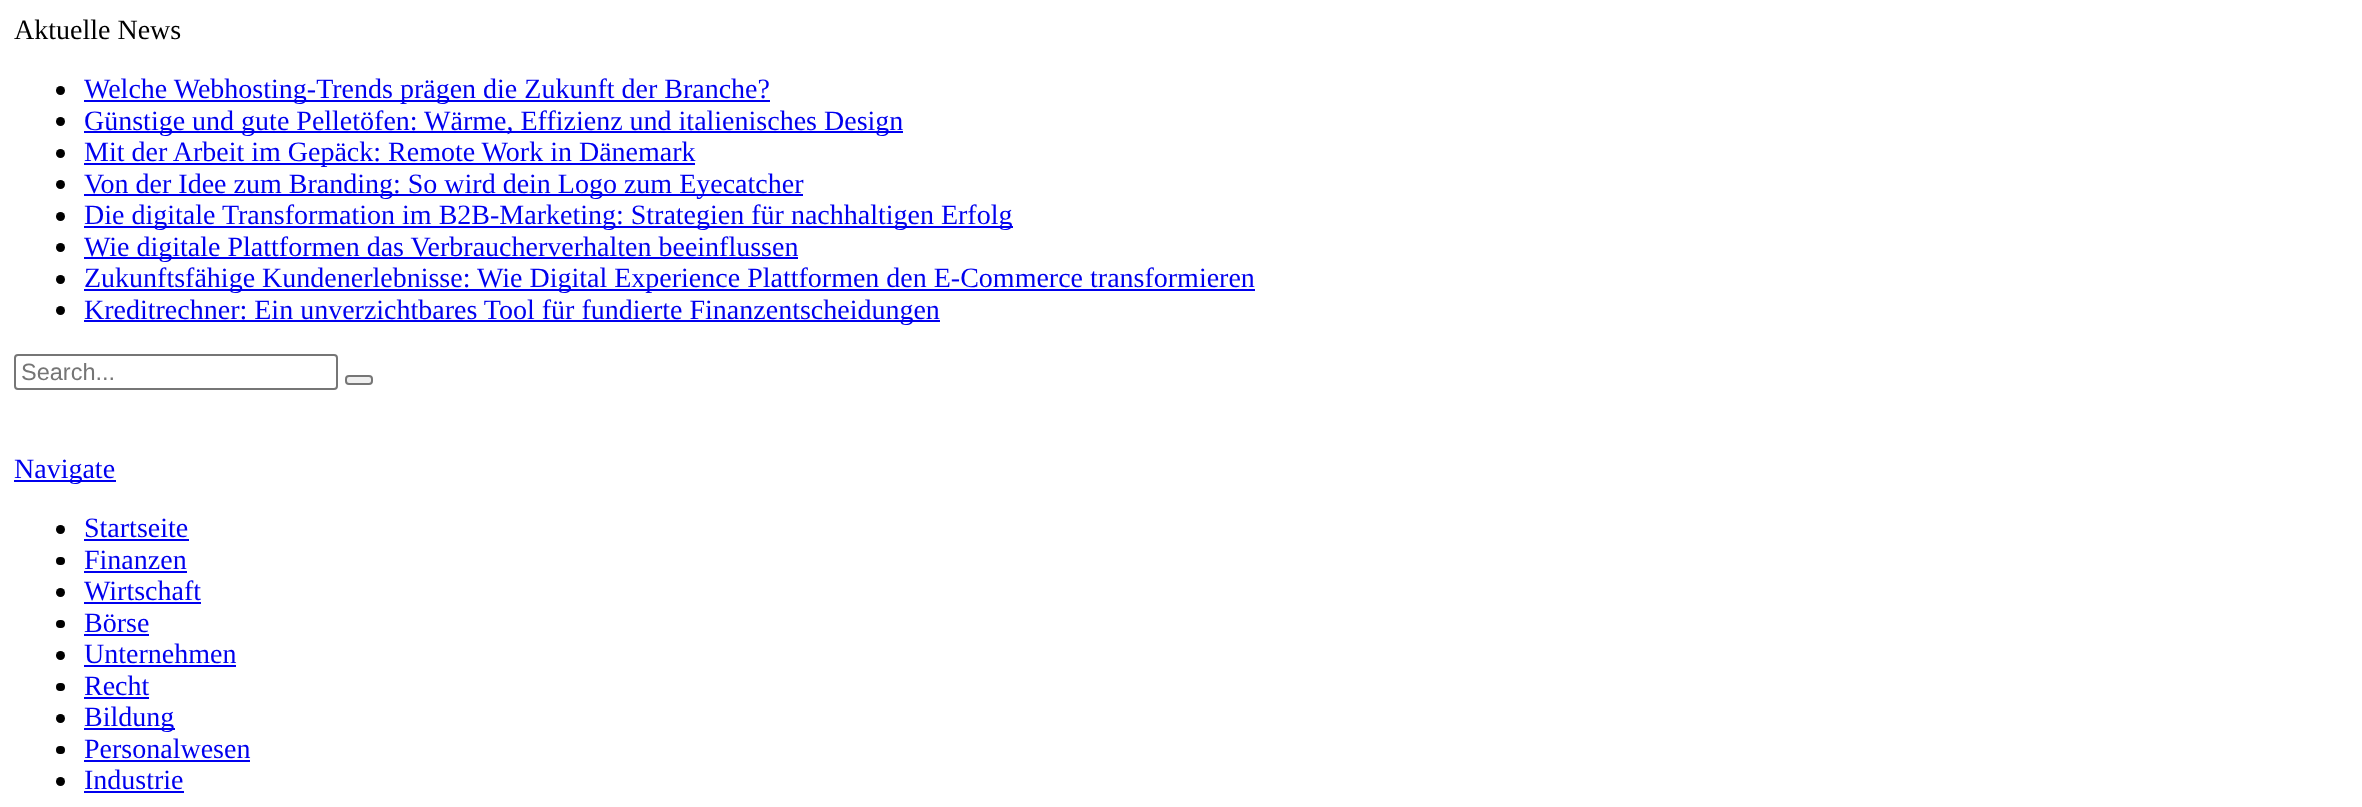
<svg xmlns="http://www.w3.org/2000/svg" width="2362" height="807">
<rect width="100%" height="100%" fill="#fff"/>
<text x="14" y="39" style="font-family:Liberation Serif;font-size:28px;fill:#000">Aktuelle News</text>
<circle cx="60.5" cy="90.5" r="4.5" fill="#000"/>
<rect x="84" y="100" width="686" height="2" fill="#00e"/>
<text x="84" y="98" style="font-family:Liberation Serif;font-size:28px;fill:#00e">Welche Webhosting-Trends prägen die Zukunft der Branche?</text>
<circle cx="60.5" cy="121.5" r="4.5" fill="#000"/>
<rect x="84" y="131" width="819" height="2" fill="#00e"/>
<text x="84" y="130" style="font-family:Liberation Serif;font-size:28px;fill:#00e">Günstige und gute Pelletöfen: Wärme, Effizienz und italienisches Design</text>
<circle cx="60.5" cy="153.5" r="4.5" fill="#000"/>
<rect x="84" y="163" width="611" height="2" fill="#00e"/>
<text x="84" y="161" style="font-family:Liberation Serif;font-size:28px;fill:#00e">Mit der Arbeit im Gepäck: Remote Work in Dänemark</text>
<circle cx="60.5" cy="184.5" r="4.5" fill="#000"/>
<rect x="84" y="194" width="719" height="2" fill="#00e"/>
<text x="84" y="193" style="font-family:Liberation Serif;font-size:28px;fill:#00e">Von der Idee zum Branding: So wird dein Logo zum Eyecatcher</text>
<circle cx="60.5" cy="216.5" r="4.5" fill="#000"/>
<rect x="84" y="226" width="929" height="2" fill="#00e"/>
<text x="84" y="224" style="font-family:Liberation Serif;font-size:28px;fill:#00e">Die digitale Transformation im B2B-Marketing: Strategien für nachhaltigen Erfolg</text>
<circle cx="60.5" cy="247.5" r="4.5" fill="#000"/>
<rect x="84" y="257" width="714" height="2" fill="#00e"/>
<text x="84" y="256" style="font-family:Liberation Serif;font-size:28px;fill:#00e">Wie digitale Plattformen das Verbraucherverhalten beeinflussen</text>
<circle cx="60.5" cy="279.5" r="4.5" fill="#000"/>
<rect x="84" y="289" width="1171" height="2" fill="#00e"/>
<text x="84" y="287" style="font-family:Liberation Serif;font-size:28px;fill:#00e">Zukunftsfähige Kundenerlebnisse: Wie Digital Experience Plattformen den E-Commerce transformieren</text>
<circle cx="60.5" cy="310.5" r="4.5" fill="#000"/>
<rect x="84" y="320" width="856" height="2" fill="#00e"/>
<text x="84" y="319" style="font-family:Liberation Serif;font-size:28px;fill:#00e">Kreditrechner: Ein unverzichtbares Tool für fundierte Finanzentscheidungen</text>
<rect x="15" y="355" width="322" height="34" rx="3" fill="none" stroke="#767676" stroke-width="2"/>
<text x="21" y="380" style="font-family:Liberation Sans;font-size:23.5px;fill:#757575">Search...</text>
<rect x="346" y="376" width="26" height="8" rx="3" fill="#efefef" stroke="#767676" stroke-width="2"/>
<rect x="14" y="480" width="102" height="2" fill="#00e"/>
<text x="14" y="478" style="font-family:Liberation Serif;font-size:28px;fill:#00e">Navigate</text>
<circle cx="60.5" cy="529.5" r="4.5" fill="#000"/>
<text x="84" y="537" style="font-family:Liberation Serif;font-size:28px;fill:#00e">Startseite</text>
<rect x="84" y="539" width="105" height="2" fill="#00e"/>
<rect x="56" y="557" width="9" height="8" rx="4" fill="#000"/>
<text x="84" y="569" style="font-family:Liberation Serif;font-size:28px;fill:#00e">Finanzen</text>
<rect x="84" y="571" width="103" height="2" fill="#00e"/>
<circle cx="60.5" cy="592.5" r="4.5" fill="#000"/>
<text x="84" y="600" style="font-family:Liberation Serif;font-size:28px;fill:#00e">Wirtschaft</text>
<rect x="84" y="602" width="117" height="2" fill="#00e"/>
<rect x="56" y="620" width="9" height="8" rx="4" fill="#000"/>
<text x="84" y="632" style="font-family:Liberation Serif;font-size:28px;fill:#00e">Börse</text>
<rect x="84" y="634" width="65" height="2" fill="#00e"/>
<circle cx="60.5" cy="655.5" r="4.5" fill="#000"/>
<text x="84" y="663" style="font-family:Liberation Serif;font-size:28px;fill:#00e">Unternehmen</text>
<rect x="84" y="665" width="152" height="2" fill="#00e"/>
<rect x="56" y="683" width="9" height="8" rx="4" fill="#000"/>
<text x="84" y="695" style="font-family:Liberation Serif;font-size:28px;fill:#00e">Recht</text>
<rect x="84" y="697" width="65" height="2" fill="#00e"/>
<circle cx="60.5" cy="718.5" r="4.5" fill="#000"/>
<rect x="84" y="728" width="91" height="2" fill="#00e"/>
<text x="84" y="726" style="font-family:Liberation Serif;font-size:28px;fill:#00e">Bildung</text>
<rect x="56" y="746" width="9" height="8" rx="4" fill="#000"/>
<text x="84" y="758" style="font-family:Liberation Serif;font-size:28px;fill:#00e">Personalwesen</text>
<rect x="84" y="760" width="166" height="2" fill="#00e"/>
<circle cx="60.5" cy="781.5" r="4.5" fill="#000"/>
<text x="84" y="789" style="font-family:Liberation Serif;font-size:28px;fill:#00e">Industrie</text>
<rect x="84" y="791" width="100" height="2" fill="#00e"/>
</svg>
